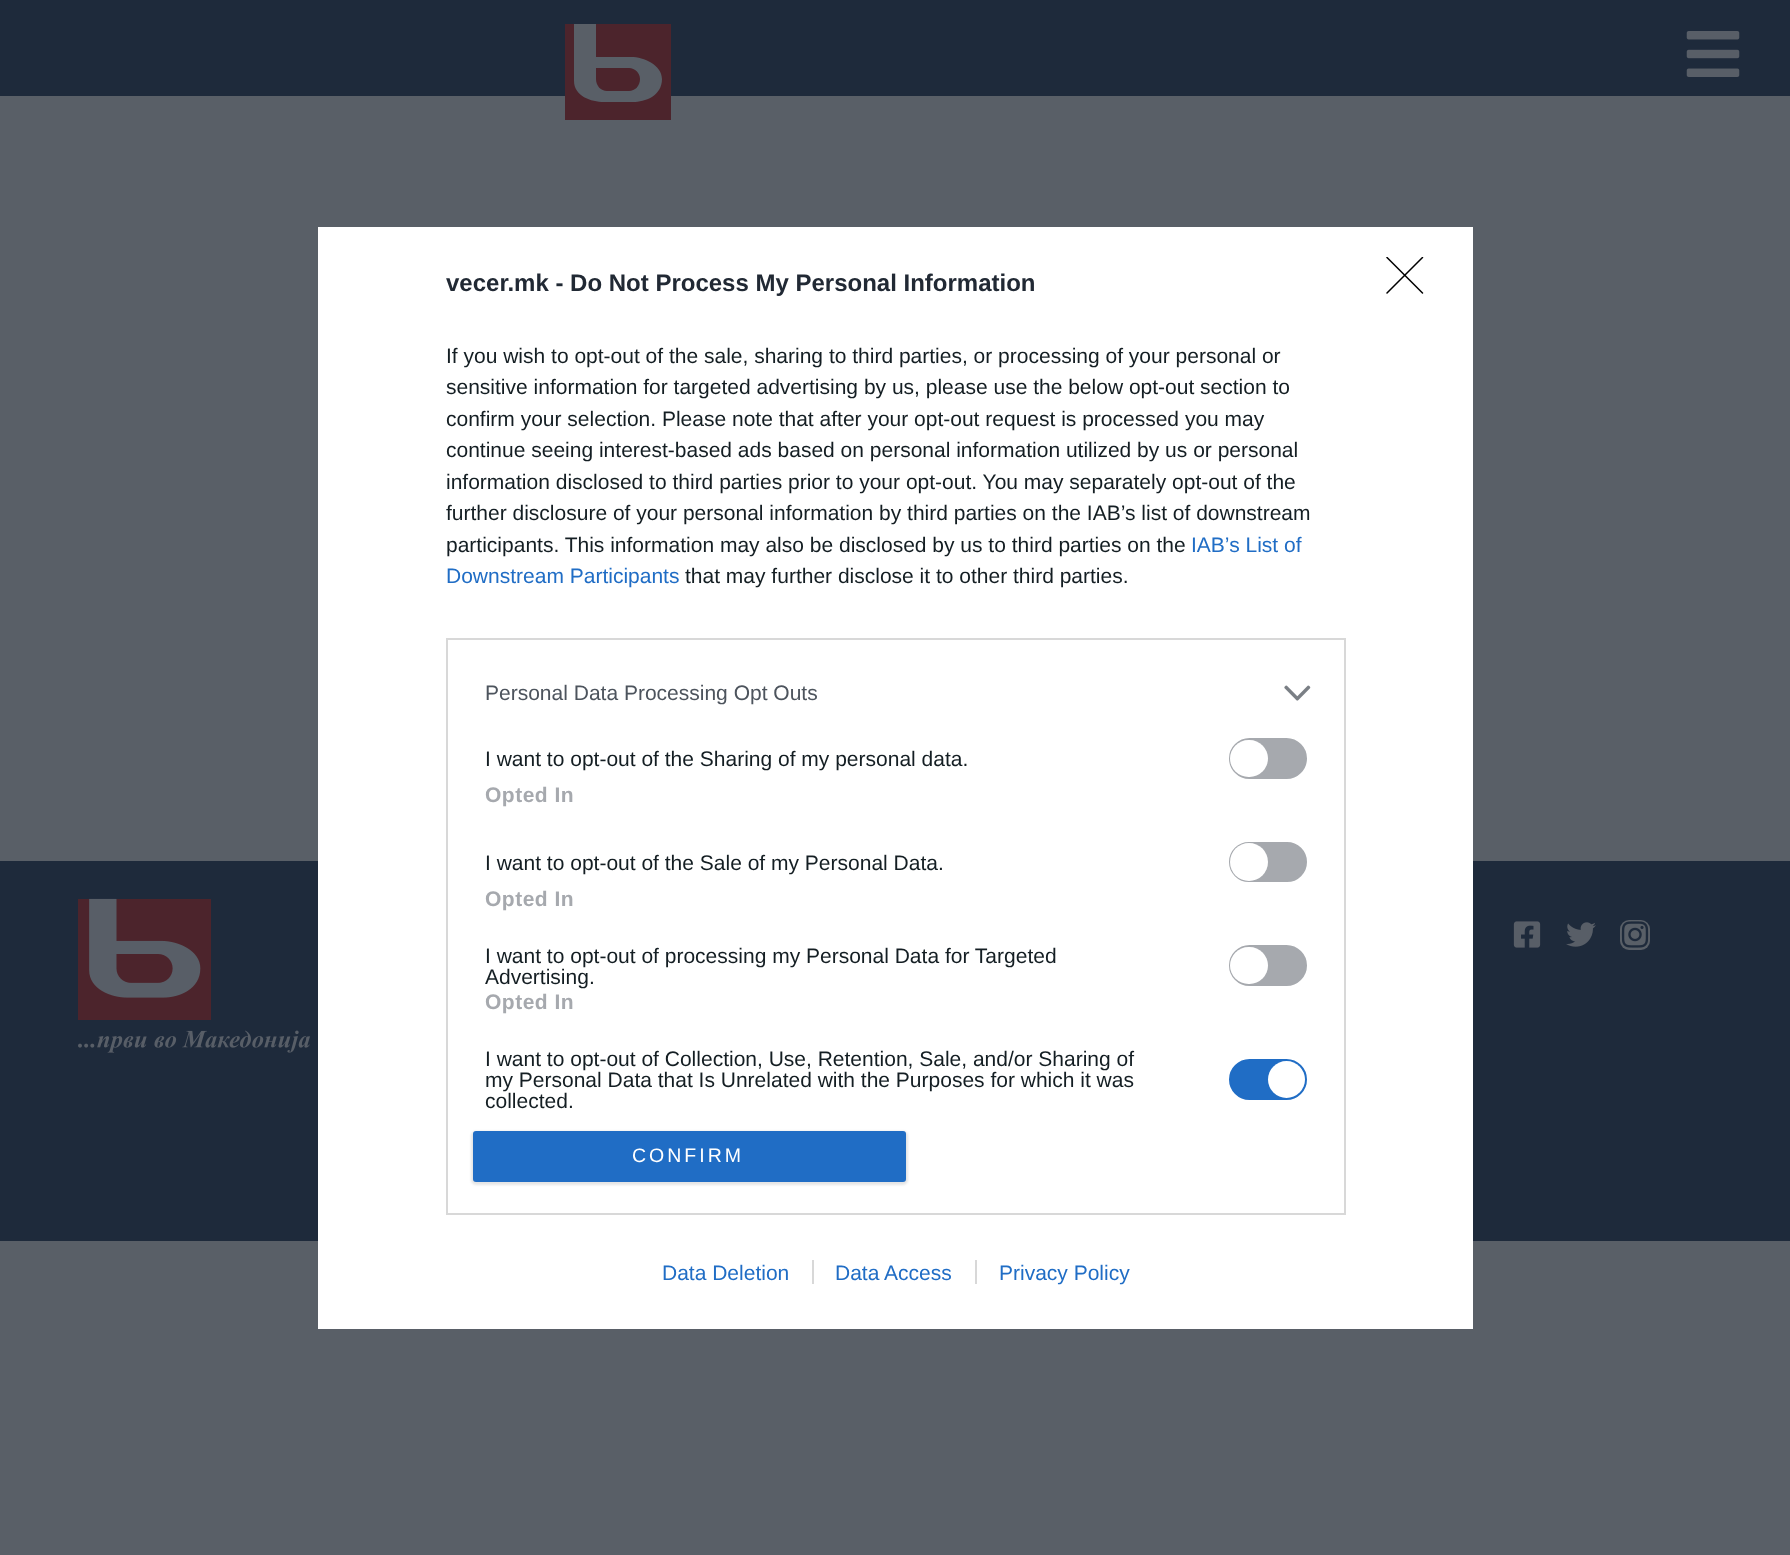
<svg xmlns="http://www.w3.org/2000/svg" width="1790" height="1555">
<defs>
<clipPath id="clip1"><rect x="1386" y="257" width="38" height="37"/></clipPath>
</defs>
<rect width="100%" height="100%" fill="#595f67"/>
<rect width="1790" height="96" fill="#1e2a3b"/>
<rect x="565" y="24" width="106" height="96" fill="#4c242c"/>
<path d="M631 57h-35v-33h-22v57c0 15 17 21 30 21h29c12 0 29-6 29-23c0-14-18-22-31-22zm9 22c0 7-5 12-11 12h-22c-6 0-11-5-11-12v-11h33c6 0 11 5 11 11z" fill="#595f67"/>
<image x="1686" y="31" width="54" height="46" href="media/1.png"/>
<rect y="861" width="1790" height="380" fill="#1e2a3b"/>
<image x="78" y="898" width="232" height="155" href="media/2.png"/>
<image x="1513" y="921" width="28" height="27" href="media/3.png"/>
<image x="1566" y="922" width="30" height="25" href="media/4.png"/>
<rect x="1620" y="920" width="30" height="30" rx="9" fill="#595f67"/>
<image x="1621" y="921" width="28" height="27" href="media/5.png"/>
<rect x="318" y="227" width="1155" height="1102" fill="#fff"/>
<text x="446" y="291" style="font-family:Liberation Sans;font-size:24px;font-weight:bold;fill:#212934">vecer.mk - Do Not Process My Personal Information</text>
<text x="446" y="363" style="font-family:Liberation Sans;font-size:21px;fill:#141e23">If you wish to opt-out of the sale, sharing to third parties, or processing of your personal or</text>
<text x="446" y="394" style="font-family:Liberation Sans;font-size:21px;fill:#141e23">sensitive information for targeted advertising by us, please use the below opt-out section to</text>
<text x="446" y="426" style="font-family:Liberation Sans;font-size:21px;fill:#141e23">confirm your selection. Please note that after your opt-out request is processed you may</text>
<text x="446" y="457" style="font-family:Liberation Sans;font-size:21px;fill:#141e23">continue seeing interest-based ads based on personal information utilized by us or personal</text>
<text x="446" y="489" style="font-family:Liberation Sans;font-size:21px;fill:#141e23">information disclosed to third parties prior to your opt-out. You may separately opt-out of the</text>
<text x="446" y="520" style="font-family:Liberation Sans;font-size:21px;fill:#141e23">further disclosure of your personal information by third parties on the IAB’s list of downstream</text>
<text x="446" y="552" style="font-family:Liberation Sans;font-size:21px;fill:#141e23">participants. This information may also be disclosed by us to third parties on the</text>
<text x="1191" y="552" style="font-family:Liberation Sans;font-size:21px;fill:#206dc5">IAB’s List of</text>
<text x="446" y="583" style="font-family:Liberation Sans;font-size:21px;fill:#206dc5">Downstream Participants</text>
<text x="685" y="583" style="font-family:Liberation Sans;font-size:21px;fill:#141e23">that may further disclose it to other third parties.</text>
<rect x="447" y="639" width="898" height="575" fill="none" stroke="#d8d8d8" stroke-width="2"/>
<text x="485" y="700" style="font-family:Liberation Sans;font-size:21px;fill:#4d545d">Personal Data Processing Opt Outs</text>
<image x="1284" y="685" width="27" height="16" href="media/6.png"/>
<text x="485" y="766" style="font-family:Liberation Sans;font-size:21px;fill:#141e23">I want to opt-out of the Sharing of my personal data.</text>
<rect x="1230" y="739" width="76" height="39" rx="19.5" fill="#a6a9ae" stroke="#a6a9ae" stroke-width="2"/>
<rect x="1230" y="740" width="38" height="37" rx="18.5" fill="#fff"/>
<text x="485" y="802" style="font-family:Liberation Sans;font-size:21px;font-weight:bold;letter-spacing:0.5px;fill:#a6a9ae">Opted In</text>
<text x="485" y="870" style="font-family:Liberation Sans;font-size:21px;fill:#141e23">I want to opt-out of the Sale of my Personal Data.</text>
<rect x="1230" y="843" width="76" height="38" rx="19" fill="#a6a9ae" stroke="#a6a9ae" stroke-width="2"/>
<circle cx="1249" cy="862" r="19" fill="#fff"/>
<text x="485" y="906" style="font-family:Liberation Sans;font-size:21px;font-weight:bold;letter-spacing:0.5px;fill:#a6a9ae">Opted In</text>
<text x="485" y="963" style="font-family:Liberation Sans;font-size:21px;fill:#141e23">I want to opt-out of processing my Personal Data for Targeted</text>
<text x="485" y="984" style="font-family:Liberation Sans;font-size:21px;fill:#141e23">Advertising.</text>
<rect x="1230" y="946" width="76" height="39" rx="19.5" fill="#a6a9ae" stroke="#a6a9ae" stroke-width="2"/>
<rect x="1230" y="947" width="38" height="37" rx="18.5" fill="#fff"/>
<text x="485" y="1009" style="font-family:Liberation Sans;font-size:21px;font-weight:bold;letter-spacing:0.5px;fill:#a6a9ae">Opted In</text>
<text x="485" y="1066" style="font-family:Liberation Sans;font-size:21px;fill:#141e23">I want to opt-out of Collection, Use, Retention, Sale, and/or Sharing of</text>
<text x="485" y="1087" style="font-family:Liberation Sans;font-size:21px;fill:#141e23">my Personal Data that Is Unrelated with the Purposes for which it was</text>
<text x="485" y="1108" style="font-family:Liberation Sans;font-size:21px;fill:#141e23">collected.</text>
<rect x="1230" y="1060" width="76" height="39" rx="19.5" fill="#206dc5" stroke="#206dc5" stroke-width="2"/>
<circle cx="1286.5" cy="1079.5" r="18.5" fill="#fff"/>
<rect x="471" y="1131" width="437" height="54" rx="5" fill="#0000001a" filter="blur(1px)"/>
<rect x="473" y="1131" width="433" height="51" rx="3" fill="#206dc5"/>
<text x="632" y="1162" style="font-family:Liberation Sans;font-size:19.5px;letter-spacing:3px;fill:#fff">CONFIRM</text>
<g clip-path="url(#clip1)">
<path d="M1387 257.5l35.5 35.5m0-35.5l-35.5 35.5" fill="none" stroke="#000" stroke-width="1.5" stroke-linecap="round" stroke-linejoin="round"/>
</g>
<text x="662" y="1280" style="font-family:Liberation Sans;font-size:21px;fill:#206dc5">Data Deletion</text>
<text x="835" y="1280" style="font-family:Liberation Sans;font-size:21px;fill:#206dc5">Data Access</text>
<rect x="812" y="1260" width="2" height="24" fill="#d8d8d8"/>
<text x="999" y="1280" style="font-family:Liberation Sans;font-size:21px;fill:#206dc5">Privacy Policy</text>
<rect x="975" y="1260" width="2" height="24" fill="#d8d8d8"/>
</svg>
